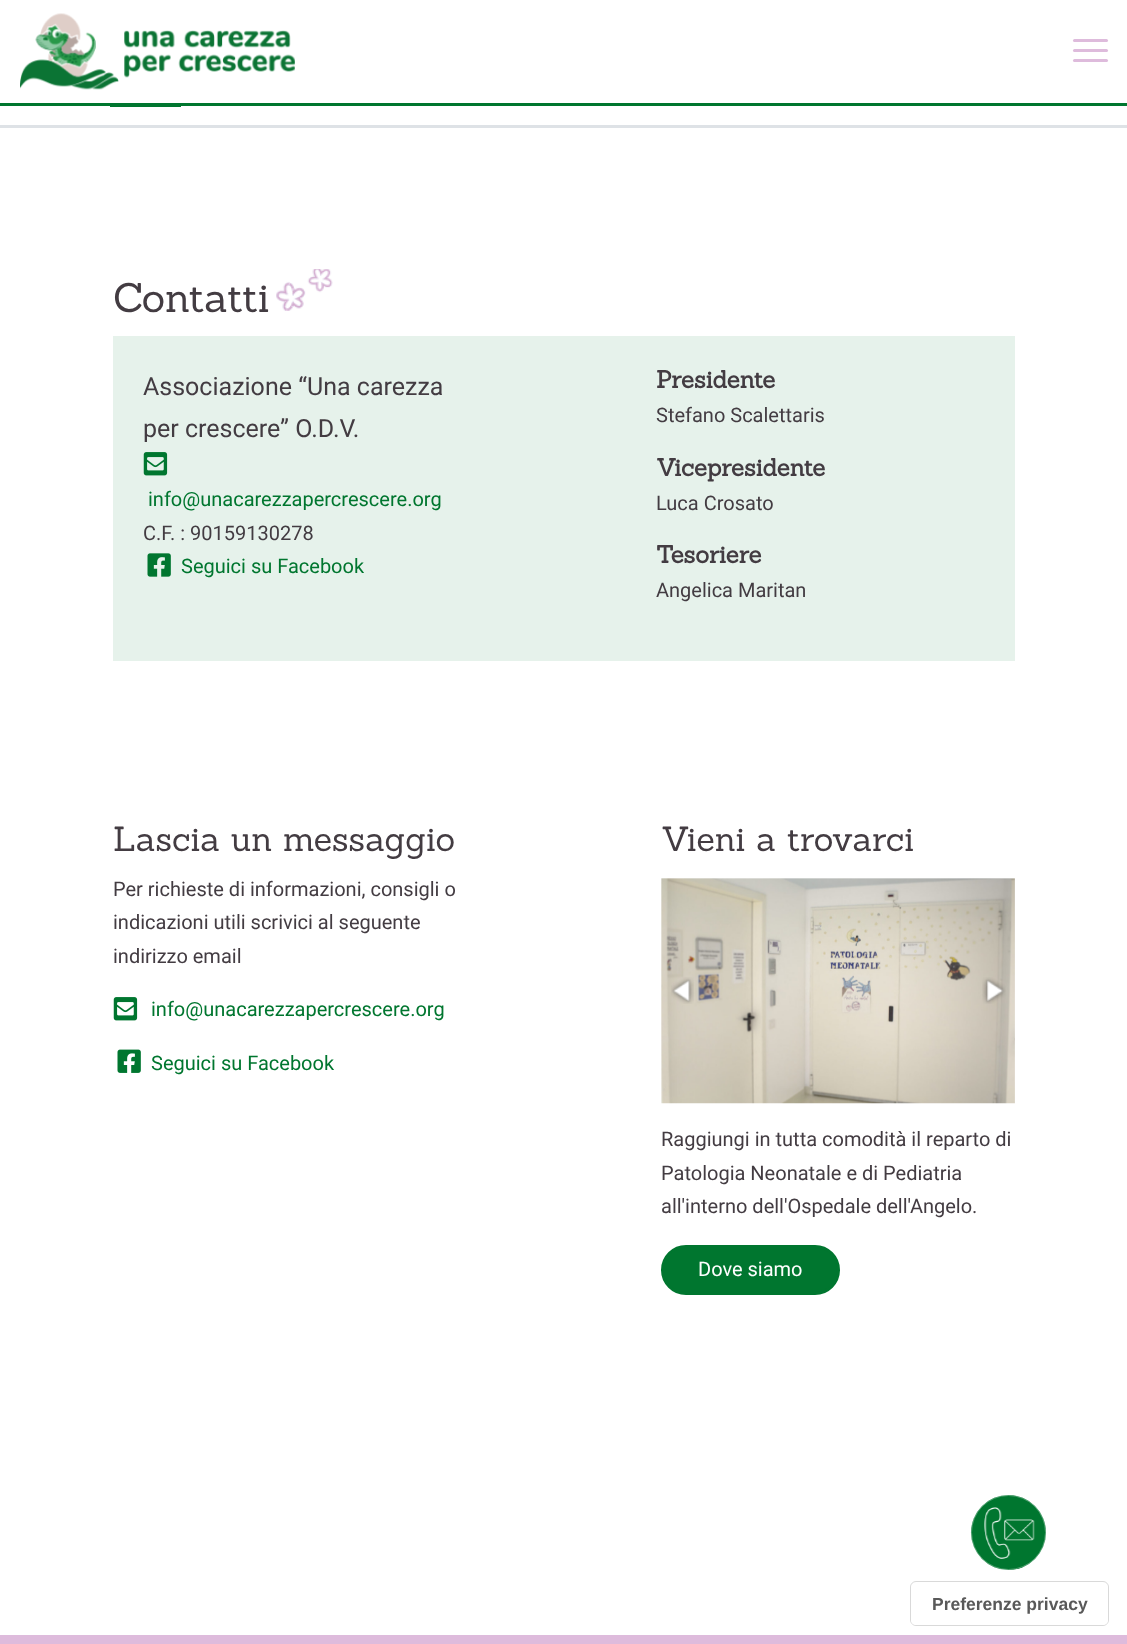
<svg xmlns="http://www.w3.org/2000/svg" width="1127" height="1644">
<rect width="100%" height="100%" fill="#fff"/>
<rect y="103" width="1127" height="3" fill="#00762f"/>
<image x="20" y="13" width="275" height="77" href="media/1.png"/>
<rect x="1073" y="39" width="35" height="3" rx="1.5" fill="#debbdc"/>
<rect x="1073" y="49" width="35" height="3" rx="1.5" fill="#debbdc"/>
<rect x="1073" y="59" width="35" height="3" rx="1.5" fill="#debbdc"/>
<rect y="125" width="1127" height="3" fill="#dee2e6"/>
<rect x="110" y="106" width="71" height="1" fill="#00762f"/>
<text x="113" y="312" style="font-family:Sanchez;font-size:40.5px;fill:#433c42">Contatti</text>
<image x="276" y="269" width="57" height="42" href="media/2.png"/>
<rect x="113" y="336" width="902" height="325" fill="#e6f2eb"/>
<text x="143" y="395" style="font-family:Roboto;font-size:25px;fill:#433c42">Associazione “Una carezza</text>
<text x="143" y="437" style="font-family:Roboto;font-size:25px;fill:#433c42">per crescere” O.D.V.</text>
<image x="143" y="452" width="25" height="24" href="media/3.png"/>
<text x="148" y="506" style="font-family:Roboto;font-size:20px;fill:#00762f">info@unacarezzapercrescere.org</text>
<text x="143" y="540" style="font-family:Roboto;font-size:20px;fill:#433c42">C.F. : 90159130278</text>
<image x="147" y="553" width="24" height="24" href="media/4.png"/>
<text x="181" y="573" style="font-family:Roboto;font-size:20px;fill:#00762f">Seguici su Facebook</text>
<text x="656" y="388" style="font-family:Sanchez;font-size:24px;font-weight:bold;fill:#433c42">Presidente</text>
<text x="656" y="422" style="font-family:Roboto;font-size:20px;fill:#433c42">Stefano Scalettaris</text>
<text x="656" y="476" style="font-family:Sanchez;font-size:24px;font-weight:bold;fill:#433c42">Vicepresidente</text>
<text x="656" y="510" style="font-family:Roboto;font-size:20px;fill:#433c42">Luca Crosato</text>
<text x="656" y="563" style="font-family:Sanchez;font-size:24px;font-weight:bold;fill:#433c42">Tesoriere</text>
<text x="656" y="597" style="font-family:Roboto;font-size:20px;fill:#433c42">Angelica Maritan</text>
<text x="113" y="851" style="font-family:Sanchez;font-size:34px;fill:#433c42">Lascia un messaggio</text>
<text x="113" y="896" style="font-family:Roboto;font-size:20px;fill:#433c42">Per richieste di informazioni, consigli o</text>
<text x="113" y="929" style="font-family:Roboto;font-size:20px;fill:#433c42">indicazioni utili scrivici al seguente</text>
<text x="113" y="963" style="font-family:Roboto;font-size:20px;fill:#433c42">indirizzo email</text>
<image x="113" y="997" width="25" height="24" href="media/5.png"/>
<text x="151" y="1016" style="font-family:Roboto;font-size:20px;fill:#00762f">info@unacarezzapercrescere.org</text>
<image x="117" y="1049" width="24" height="24" href="media/6.png"/>
<text x="151" y="1070" style="font-family:Roboto;font-size:20px;fill:#00762f">Seguici su Facebook</text>
<text x="661" y="851" style="font-family:Sanchez;font-size:34px;fill:#433c42">Vieni a trovarci</text>
<image x="661" y="878" width="354" height="226" href="media/7.png"/>
<image x="671" y="977" width="23" height="27" href="media/8.png"/>
<image x="982" y="977" width="24" height="27" href="media/9.png"/>
<text x="661" y="1146" style="font-family:Roboto;font-size:20px;fill:#433c42">Raggiungi in tutta comodità il reparto di</text>
<text x="661" y="1180" style="font-family:Roboto;font-size:20px;fill:#433c42">Patologia Neonatale e di Pediatria</text>
<text x="661" y="1213" style="font-family:Roboto;font-size:20px;fill:#433c42">all'interno dell'Ospedale dell'Angelo.</text>
<rect x="662.5" y="1246.5" width="176" height="47" rx="23.5" fill="#00762f" stroke="#00762f" stroke-width="3"/>
<text x="698" y="1276" style="font-family:Roboto;font-size:20px;fill:#fff">Dove siamo</text>
<circle cx="1008.5" cy="1532.5" r="37.5" fill="#00762f"/>
<image x="984" y="1507" width="51" height="52" href="media/10.png"/>
<circle cx="1008.5" cy="1532.5" r="37" fill="none" stroke="#ffffff4d"/>
<rect x="910.5" y="1581.5" width="198" height="44" rx="5.5" fill="none" stroke="#d9d9d9"/>
<rect x="911" y="1583" width="197" height="42" rx="5" fill="#fff"/>
<text x="932" y="1610" style="font-family:Liberation Sans;font-size:17.5px;font-weight:bold;fill:#595959">Preferenze privacy</text>
<rect y="1635" width="1127" height="9" fill="#debbdc"/>
</svg>
